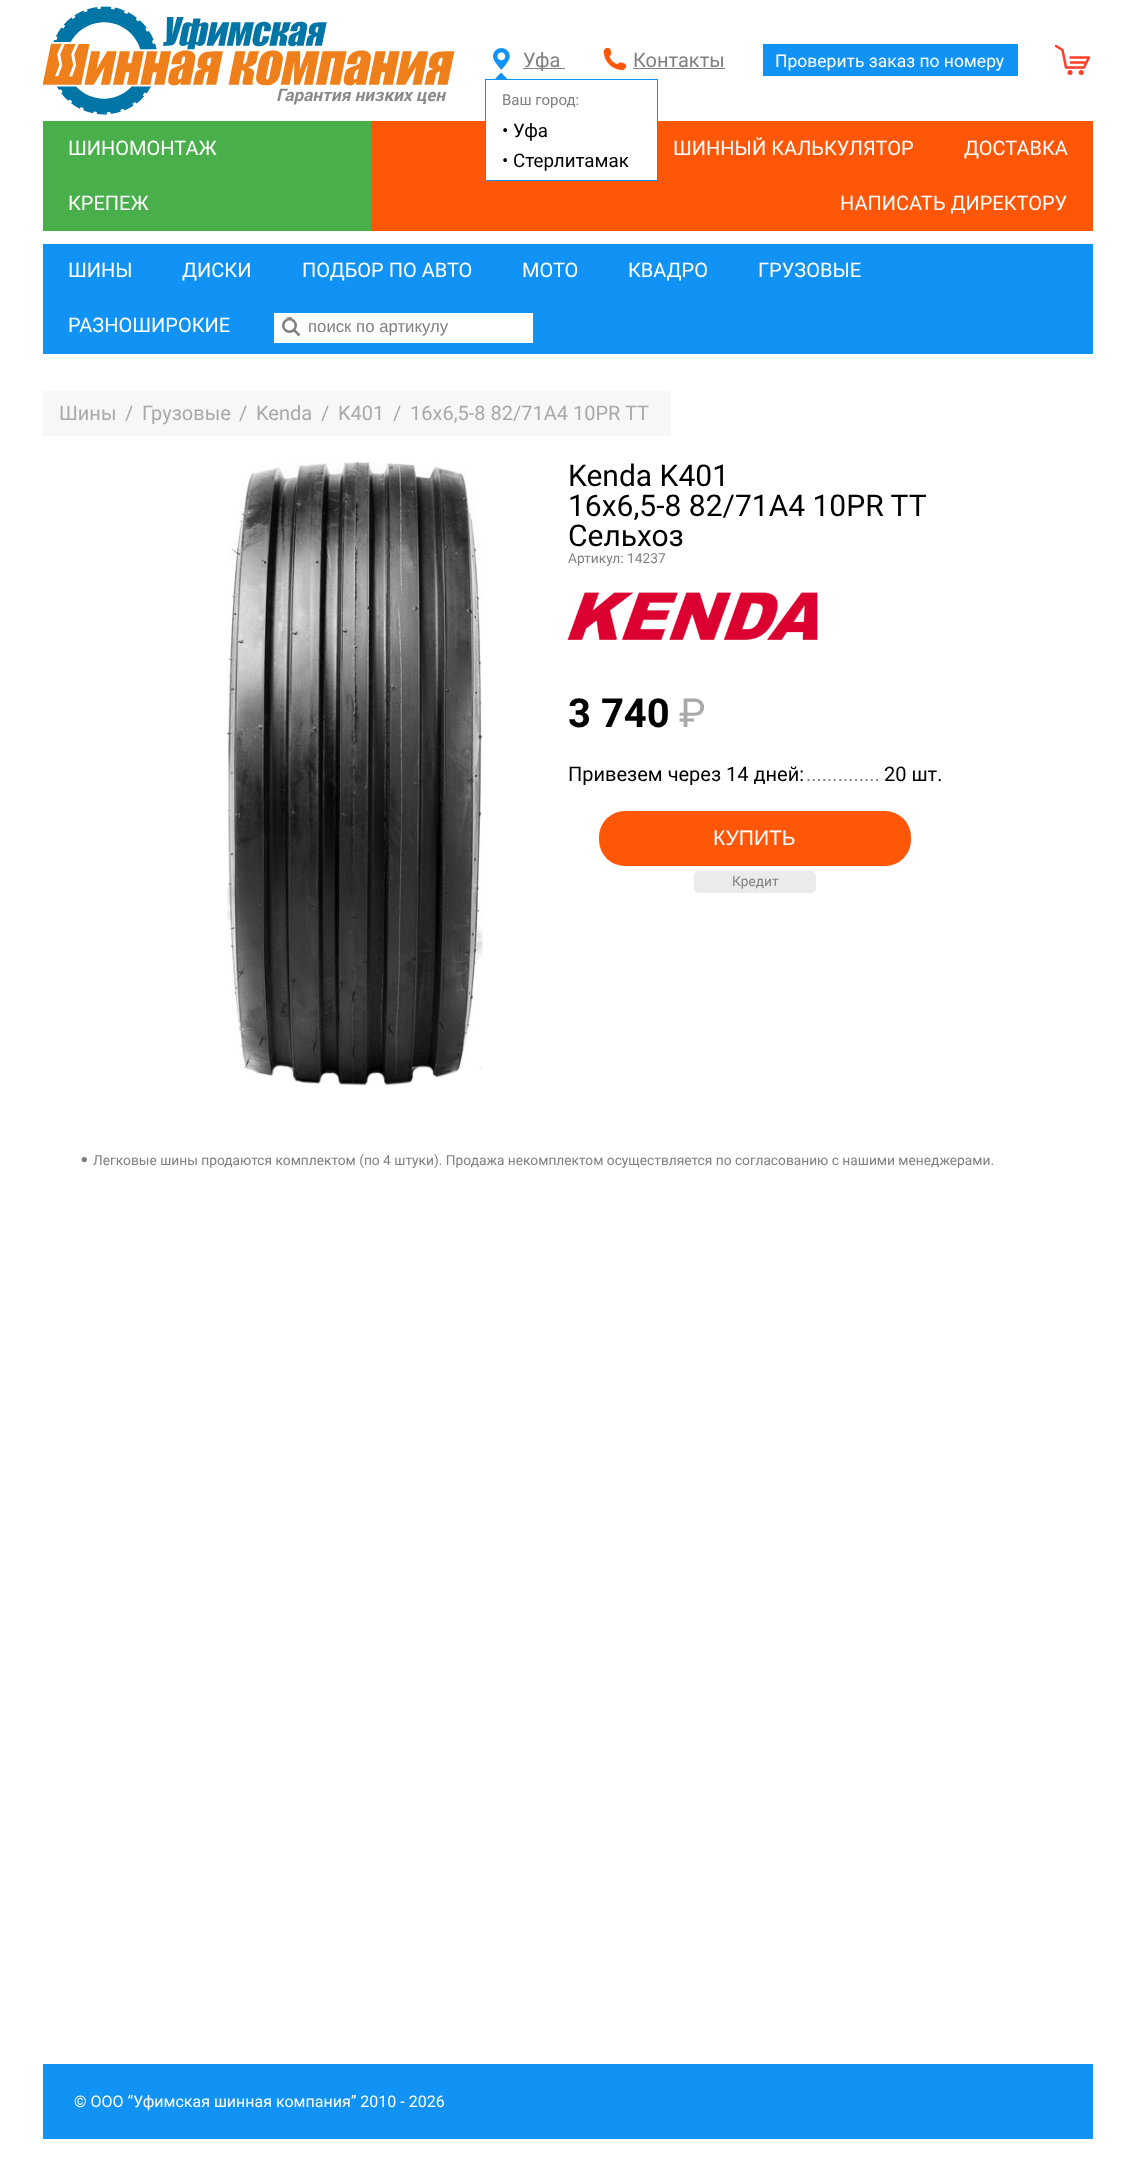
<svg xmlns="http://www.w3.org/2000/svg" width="1135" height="2163">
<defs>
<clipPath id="clip1"><rect x="1055" y="45" width="38" height="31"/></clipPath>
</defs>
<rect width="100%" height="100%" fill="#fff"/>
<image x="43" y="6" width="412" height="109" href="media/1.png"/>
<image x="603" y="48" width="24" height="22" href="media/2.png"/>
<image x="493" y="48" width="17" height="22" href="media/3.png"/>
<rect x="523" y="68" width="42" height="1" fill="#808080"/>
<text x="523" y="67" style="font-family:Roboto;font-size:20px;fill:#808080">Уфа</text>
<rect x="371" y="121" width="722" height="110" fill="#ff5607"/>
<rect x="486" y="121" width="171" height="59" fill="#fff"/>
<rect x="485.5" y="79.5" width="172" height="101" fill="none" stroke="#1193f5"/>
<path d="M507.5 79h-12.5l6-6.5z" fill="#1193f5"/>
<text x="502" y="105" style="font-family:Roboto;font-size:15px;fill:#808080">Ваш город:</text>
<text x="502" y="137" style="font-family:Roboto;font-size:18.75px;fill:#000">• Уфа</text>
<text x="502" y="167" style="font-family:Roboto;font-size:18.75px;fill:#000">• Стерлитамак</text>
<text x="633" y="67" style="font-family:Roboto;font-size:20px;fill:#808080">Контакты</text>
<rect x="633" y="68" width="92" height="1" fill="#808080"/>
<rect x="763" y="44" width="255" height="32" fill="#1193f5"/>
<text x="775" y="67" style="font-family:Roboto;font-size:17.5px;fill:#fff">Проверить заказ по номеру</text>
<g clip-path="url(#clip1)">
<path d="M1056 46l6.5 4l3.5 17.5h18l5-10h-18.5" fill="none" stroke="#ff3f28" stroke-width="2.5" stroke-linecap="round" stroke-linejoin="round"/>
</g>
<path d="M1071 62.5h14" fill="none" stroke="#ff3f28" stroke-width="2.5" stroke-linecap="round" stroke-linejoin="round"/>
<circle cx="1070" cy="72.5" r="2.5" fill="#ff3f28"/>
<circle cx="1081.2" cy="72.5" r="2.5" fill="#ff3f28"/>
<rect x="43" y="121" width="328" height="110" fill="#48af4b"/>
<text x="68" y="155" style="font-family:Roboto;font-size:20px;fill:#fff">ШИНОМОНТАЖ</text>
<text x="68" y="210" style="font-family:Roboto;font-size:20px;fill:#fff">КРЕПЕЖ</text>
<text x="673" y="155" style="font-family:Roboto;font-size:20px;fill:#fff">ШИННЫЙ КАЛЬКУЛЯТОР</text>
<text x="964" y="155" style="font-family:Roboto;font-size:20px;fill:#fff">ДОСТАВКА</text>
<text x="840" y="210" style="font-family:Roboto;font-size:20px;fill:#fff">НАПИСАТЬ ДИРЕКТОРУ</text>
<rect x="43" y="244" width="1050" height="110" fill="#1193f5"/>
<text x="68" y="277" style="font-family:Roboto;font-size:20px;fill:#fff">ШИНЫ</text>
<text x="182" y="277" style="font-family:Roboto;font-size:20px;fill:#fff">ДИСКИ</text>
<text x="302" y="277" style="font-family:Roboto;font-size:20px;fill:#fff">ПОДБОР ПО АВТО</text>
<text x="522" y="277" style="font-family:Roboto;font-size:20px;fill:#fff">МОТО</text>
<text x="628" y="277" style="font-family:Roboto;font-size:20px;fill:#fff">КВАДРО</text>
<text x="758" y="277" style="font-family:Roboto;font-size:20px;fill:#fff">ГРУЗОВЫЕ</text>
<text x="68" y="332" style="font-family:Roboto;font-size:20px;fill:#fff">РАЗНОШИРОКИЕ</text>
<rect x="274" y="313" width="259" height="30" fill="#fff"/>
<image x="282" y="317" width="19" height="20" href="media/4.png"/>
<text x="308" y="332" style="font-family:Liberation Sans;font-size:16.75px;fill:#808080">поиск по артикулу</text>
<rect x="43" y="391" width="628" height="45" fill="#f7f7f7"/>
<text x="59" y="420" style="font-family:Roboto;font-size:20px;fill:#a9a9a9">Шины</text>
<text x="125" y="420" style="font-family:Roboto;font-size:20px;fill:#a9a9a9">/</text>
<text x="142" y="420" style="font-family:Roboto;font-size:20px;fill:#a9a9a9">Грузовые</text>
<text x="239" y="420" style="font-family:Roboto;font-size:20px;fill:#a9a9a9">/</text>
<text x="256" y="420" style="font-family:Roboto;font-size:20px;fill:#a9a9a9">Kenda</text>
<text x="321" y="420" style="font-family:Roboto;font-size:20px;fill:#a9a9a9">/</text>
<text x="338" y="420" style="font-family:Roboto;font-size:20px;fill:#a9a9a9">K401</text>
<text x="393" y="420" style="font-family:Roboto;font-size:20px;fill:#a9a9a9">/</text>
<text x="410" y="420" style="font-family:Roboto;font-size:20px;fill:#a9a9a9">16x6,5-8 82/71A4 10PR TT</text>
<image x="227" y="461" width="256" height="625" href="media/5.png"/>
<text x="568" y="486" style="font-family:Roboto;font-size:30px;fill:#000">Kenda K401</text>
<text x="568" y="516" style="font-family:Roboto;font-size:30px;fill:#000">16x6,5-8 82/71A4 10PR TT</text>
<text x="568" y="546" style="font-family:Roboto;font-size:30px;fill:#000">Сельхоз</text>
<text x="568" y="563" style="font-family:Roboto;font-size:13.75px;fill:#808080">Артикул: 14237</text>
<image x="567" y="592" width="251" height="48" href="media/6.png"/>
<text x="568" y="727" style="font-family:Roboto;font-size:40px;font-weight:bold;fill:#000">3 740</text>
<text x="679" y="727" style="font-family:Roboto;font-size:40px;fill:#a9a9a9">₽</text>
<text x="568" y="781" style="font-family:Roboto;font-size:20px;fill:#000">Привезем через 14 дней:</text>
<text x="806" y="781" style="font-family:Roboto;font-size:20px;fill:#808080">..............</text>
<text x="884" y="781" style="font-family:Roboto;font-size:20px;fill:#000">20 шт.</text>
<rect x="599" y="811" width="312" height="55" rx="26" fill="#ff5607"/>
<text x="713" y="845" style="font-family:Liberation Sans;font-size:21px;fill:#fff">КУПИТЬ</text>
<rect x="694" y="871" width="122" height="22" rx="5" fill="#ebebeb"/>
<text x="732" y="886" style="font-family:Roboto;font-size:13.75px;fill:#808080">Кредит</text>
<text x="78" y="1177" style="font-family:Roboto;font-size:49px;fill:#808080">·</text>
<text x="93" y="1165" style="font-family:Roboto;font-size:13.75px;fill:#808080">Легковые шины продаются комплектом (по 4 штуки). Продажа некомплектом осуществляется по согласованию с нашими менеджерами.</text>
<rect x="43" y="2064" width="1050" height="75" fill="#1193f5"/>
<text x="74" y="2107" style="font-family:Roboto;font-size:16px;fill:#fff">© ООО “Уфимская шинная компания” 2010 - 2026</text>
</svg>
